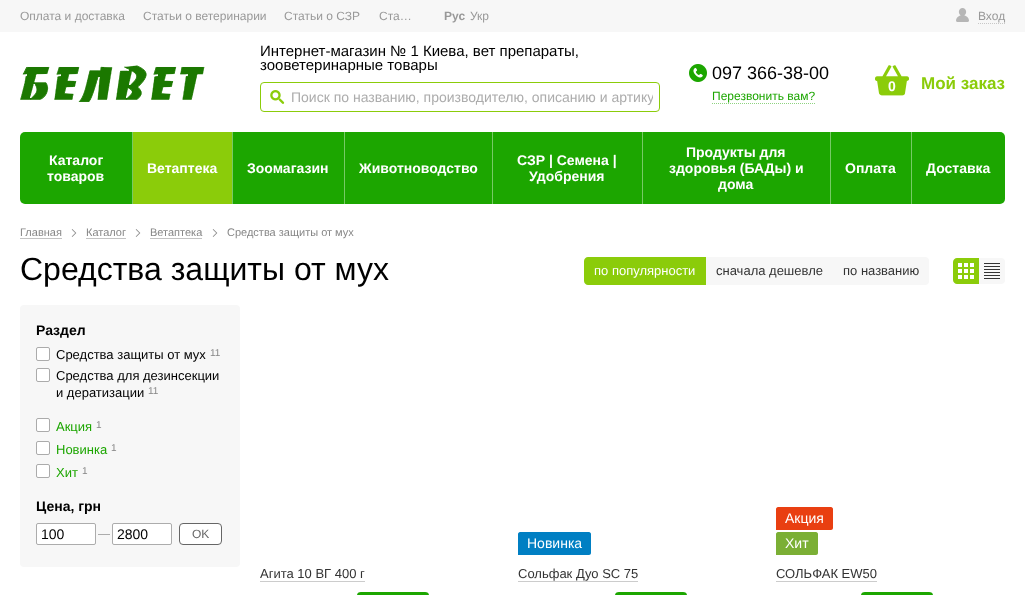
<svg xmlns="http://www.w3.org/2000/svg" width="1025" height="595">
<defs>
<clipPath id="clip1"><rect x="291" y="89" width="362" height="16"/></clipPath>
</defs>
<rect width="100%" height="100%" fill="#fff"/>
<rect width="1025" height="32" fill="#f7f7f7"/>
<text x="20" y="20" style="font-family:Liberation Sans;font-size:12px;fill:#999">Оплата и доставка</text>
<text x="143" y="20" style="font-family:Liberation Sans;font-size:12px;fill:#999">Статьи о ветеринарии</text>
<text x="284" y="20" style="font-family:Liberation Sans;font-size:12px;fill:#999">Статьи о СЗР</text>
<text x="379" y="20" style="font-family:Liberation Sans;font-size:12px;fill:#999">Ста…</text>
<text x="444" y="20" style="font-family:Liberation Sans;font-size:12px;font-weight:bold;fill:#999">Рус</text>
<text x="470" y="20" style="font-family:Liberation Sans;font-size:12px;fill:#999">Укр</text>
<image x="956" y="8" width="13" height="14" href="media/1.png"/>
<text x="978" y="20" style="font-family:Liberation Sans;font-size:12px;fill:#999">Вход</text>
<path d="M978 23.5h27" fill="none" stroke="#c8c8c8" stroke-dasharray="1 1"/>
<image x="20" y="65" width="185" height="37" href="media/2.png"/>
<text x="260" y="56" style="font-family:Liberation Sans;font-size:15px;fill:#000">Интернет-магазин № 1 Киева, вет препараты,</text>
<text x="260" y="70" style="font-family:Liberation Sans;font-size:15px;fill:#000">зооветеринарные товары</text>
<rect x="260.5" y="82.5" width="399" height="29" rx="3.5" fill="none" stroke="#8bcc0a"/>
<image x="270" y="90" width="15" height="14" href="media/3.png"/>
<g clip-path="url(#clip1)">
<text x="291" y="102" style="font-family:Liberation Sans;font-size:14px;fill:#acacac">Поиск по названию, производителю, описанию и артику</text>
</g>
<image x="689" y="64" width="18" height="18" href="media/4.png"/>
<text x="712" y="79" style="font-family:Liberation Sans;font-size:18px;fill:#000">097 366-38-00</text>
<text x="712" y="100" style="font-family:Liberation Sans;font-size:12px;fill:#1ca600">Перезвонить вам?</text>
<path d="M712 103.5h103" fill="none" stroke="#8ed380" stroke-dasharray="1 1"/>
<image x="875" y="65" width="34" height="31" href="media/5.png"/>
<text x="888" y="91" style="font-family:Liberation Sans;font-size:14px;font-weight:bold;fill:#fff">0</text>
<text x="921" y="89" style="font-family:Liberation Sans;font-size:17px;font-weight:bold;fill:#8bcc0a">Мой заказ</text>
<rect x="20" y="132" width="985" height="72" rx="5" fill="#1ca600"/>
<text x="49" y="165" style="font-family:Liberation Sans;font-size:14px;font-weight:bold;fill:#fff">Каталог</text>
<text x="47" y="181" style="font-family:Liberation Sans;font-size:14px;font-weight:bold;fill:#fff">товаров</text>
<rect x="132" y="132" width="1" height="72" fill="#77ca66"/>
<rect x="133" y="132" width="99" height="72" fill="#8bcc0a"/>
<text x="147" y="173" style="font-family:Liberation Sans;font-size:14px;font-weight:bold;fill:#fff">Ветаптека</text>
<rect x="232" y="132" width="1" height="72" fill="#77ca66"/>
<text x="247" y="173" style="font-family:Liberation Sans;font-size:14px;font-weight:bold;fill:#fff">Зоомагазин</text>
<rect x="344" y="132" width="1" height="72" fill="#77ca66"/>
<text x="359" y="173" style="font-family:Liberation Sans;font-size:14px;font-weight:bold;fill:#fff">Животноводство</text>
<rect x="492" y="132" width="1" height="72" fill="#77ca66"/>
<text x="517" y="165" style="font-family:Liberation Sans;font-size:14px;font-weight:bold;fill:#fff">СЗР | Семена |</text>
<text x="529" y="181" style="font-family:Liberation Sans;font-size:14px;font-weight:bold;fill:#fff">Удобрения</text>
<rect x="642" y="132" width="1" height="72" fill="#77ca66"/>
<text x="686" y="157" style="font-family:Liberation Sans;font-size:14px;font-weight:bold;fill:#fff">Продукты для</text>
<text x="669" y="173" style="font-family:Liberation Sans;font-size:14px;font-weight:bold;fill:#fff">здоровья (БАДы) и</text>
<text x="718" y="189" style="font-family:Liberation Sans;font-size:14px;font-weight:bold;fill:#fff">дома</text>
<rect x="830" y="132" width="1" height="72" fill="#77ca66"/>
<text x="845" y="173" style="font-family:Liberation Sans;font-size:14px;font-weight:bold;fill:#fff">Оплата</text>
<rect x="911" y="132" width="1" height="72" fill="#77ca66"/>
<text x="926" y="173" style="font-family:Liberation Sans;font-size:14px;font-weight:bold;fill:#fff">Доставка</text>
<text x="20" y="236" style="font-family:Liberation Sans;font-size:11px;fill:#868686">Главная</text>
<rect x="20" y="238" width="42" height="1" fill="#c3c3c3"/>
<image x="71" y="229" width="6" height="8" href="media/6.png"/>
<text x="86" y="236" style="font-family:Liberation Sans;font-size:11px;fill:#868686">Каталог</text>
<rect x="86" y="238" width="40" height="1" fill="#c3c3c3"/>
<image x="135" y="229" width="6" height="8" href="media/6.png"/>
<text x="150" y="236" style="font-family:Liberation Sans;font-size:11px;fill:#868686">Ветаптека</text>
<rect x="150" y="238" width="52" height="1" fill="#c3c3c3"/>
<image x="212" y="229" width="6" height="8" href="media/6.png"/>
<text x="227" y="236" style="font-family:Liberation Sans;font-size:11px;fill:#868686">Средства защиты от мух</text>
<text x="20" y="280" style="font-family:Liberation Sans;font-size:32px;fill:#000">Средства защиты от мух</text>
<rect x="20" y="305" width="220" height="262" rx="4" fill="#f7f7f7"/>
<text x="36" y="335" style="font-family:Liberation Sans;font-size:14px;font-weight:bold;fill:#000">Раздел</text>
<rect x="36.5" y="347.5" width="13" height="13" rx="1.5" fill="#fff" stroke="#ababab"/>
<text x="56" y="359" style="font-family:Liberation Sans;font-size:13px;fill:#000">Средства защиты от мух</text>
<text x="210" y="356" style="font-family:Liberation Sans;font-size:10px;fill:#868686">11</text>
<rect x="36.5" y="368.5" width="13" height="13" rx="1.5" fill="#fff" stroke="#ababab"/>
<text x="56" y="380" style="font-family:Liberation Sans;font-size:13px;fill:#000">Средства для дезинсекции</text>
<text x="56" y="397" style="font-family:Liberation Sans;font-size:13px;fill:#000">и дератизации</text>
<text x="148" y="394" style="font-family:Liberation Sans;font-size:10px;fill:#868686">11</text>
<rect x="36.5" y="418.5" width="13" height="13" rx="1.5" fill="#fff" stroke="#ababab"/>
<text x="56" y="431" style="font-family:Liberation Sans;font-size:13px;fill:#1ca600">Акция</text>
<text x="96" y="428" style="font-family:Liberation Sans;font-size:10px;fill:#868686">1</text>
<rect x="36.5" y="441.5" width="13" height="13" rx="1.5" fill="#fff" stroke="#ababab"/>
<text x="56" y="454" style="font-family:Liberation Sans;font-size:13px;fill:#1ca600">Новинка</text>
<text x="111" y="451" style="font-family:Liberation Sans;font-size:10px;fill:#868686">1</text>
<rect x="36.5" y="464.5" width="13" height="13" rx="1.5" fill="#fff" stroke="#ababab"/>
<text x="56" y="477" style="font-family:Liberation Sans;font-size:13px;fill:#1ca600">Хит</text>
<text x="82" y="474" style="font-family:Liberation Sans;font-size:10px;fill:#868686">1</text>
<text x="36" y="511" style="font-family:Liberation Sans;font-size:14px;font-weight:bold;fill:#000">Цена, грн</text>
<rect x="36.5" y="523.5" width="59" height="21" rx="1.5" fill="#fff" stroke="#acacac"/>
<text x="41" y="539" style="font-family:Liberation Sans;font-size:14px;fill:#000">100</text>
<rect x="98" y="534" width="12" height="1" fill="#acacac"/>
<rect x="112.5" y="523.5" width="59" height="21" rx="1.5" fill="#fff" stroke="#acacac"/>
<text x="117" y="539" style="font-family:Liberation Sans;font-size:14px;fill:#000">2800</text>
<rect x="179.5" y="523.5" width="42" height="21" rx="3.5" fill="#fff" stroke="#666"/>
<text x="192" y="538" style="font-family:Liberation Sans;font-size:12px;fill:#666">OK</text>
<rect x="584" y="257" width="345" height="28" rx="4" fill="#f7f7f7"/>
<path d="M588 257h118v28h-118c-2 0-4-2-4-4v-20c0-2 2-4 4-4z" fill="#8bcc0a"/>
<text x="594" y="275" style="font-family:Liberation Sans;font-size:13px;fill:#fff">по популярности</text>
<text x="716" y="275" style="font-family:Liberation Sans;font-size:13px;fill:#333">сначала дешевле</text>
<text x="843" y="275" style="font-family:Liberation Sans;font-size:13px;fill:#333">по названию</text>
<rect x="953" y="258" width="52" height="26" rx="4" fill="#f7f7f7"/>
<path d="M957 258h22v26h-22c-2 0-4-2-4-4v-18c0-2 2-4 4-4z" fill="#8bcc0a"/>
<image x="958" y="263" width="16" height="16" href="media/7.png"/>
<image x="984" y="263" width="16" height="16" href="media/8.png"/>
<text x="260" y="578" style="font-family:Liberation Sans;font-size:13px;fill:#333">Агита 10 ВГ 400 г</text>
<rect x="260" y="581" width="105" height="1" fill="#ccc"/>
<rect x="357" y="592" width="72" height="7" rx="4" fill="#1ca600"/>
<path d="M520 532h69c1 0 2 1 2 2v19c0 1-1 2-2 2h-71v-21c0-1 1-2 2-2z" fill="#007fc3"/>
<text x="527" y="548" style="font-family:Liberation Sans;font-size:14px;fill:#fff">Новинка</text>
<text x="518" y="578" style="font-family:Liberation Sans;font-size:13px;fill:#333">Сольфак Дуо SC 75</text>
<rect x="518" y="581" width="120" height="1" fill="#ccc"/>
<rect x="615" y="592" width="72" height="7" rx="4" fill="#1ca600"/>
<path d="M778 507h53c1 0 2 1 2 2v19c0 1-1 2-2 2h-55v-21c0-1 1-2 2-2z" fill="#e93f11"/>
<text x="785" y="523" style="font-family:Liberation Sans;font-size:14px;fill:#fff">Акция</text>
<path d="M778 532h38c1 0 2 1 2 2v19c0 1-1 2-2 2h-40v-21c0-1 1-2 2-2z" fill="#7baf35"/>
<text x="785" y="548" style="font-family:Liberation Sans;font-size:14px;fill:#fff">Хит</text>
<text x="776" y="578" style="font-family:Liberation Sans;font-size:13px;fill:#333">СОЛЬФАК EW50</text>
<rect x="776" y="581" width="101" height="1" fill="#ccc"/>
<rect x="861" y="592" width="72" height="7" rx="4" fill="#1ca600"/>
</svg>
